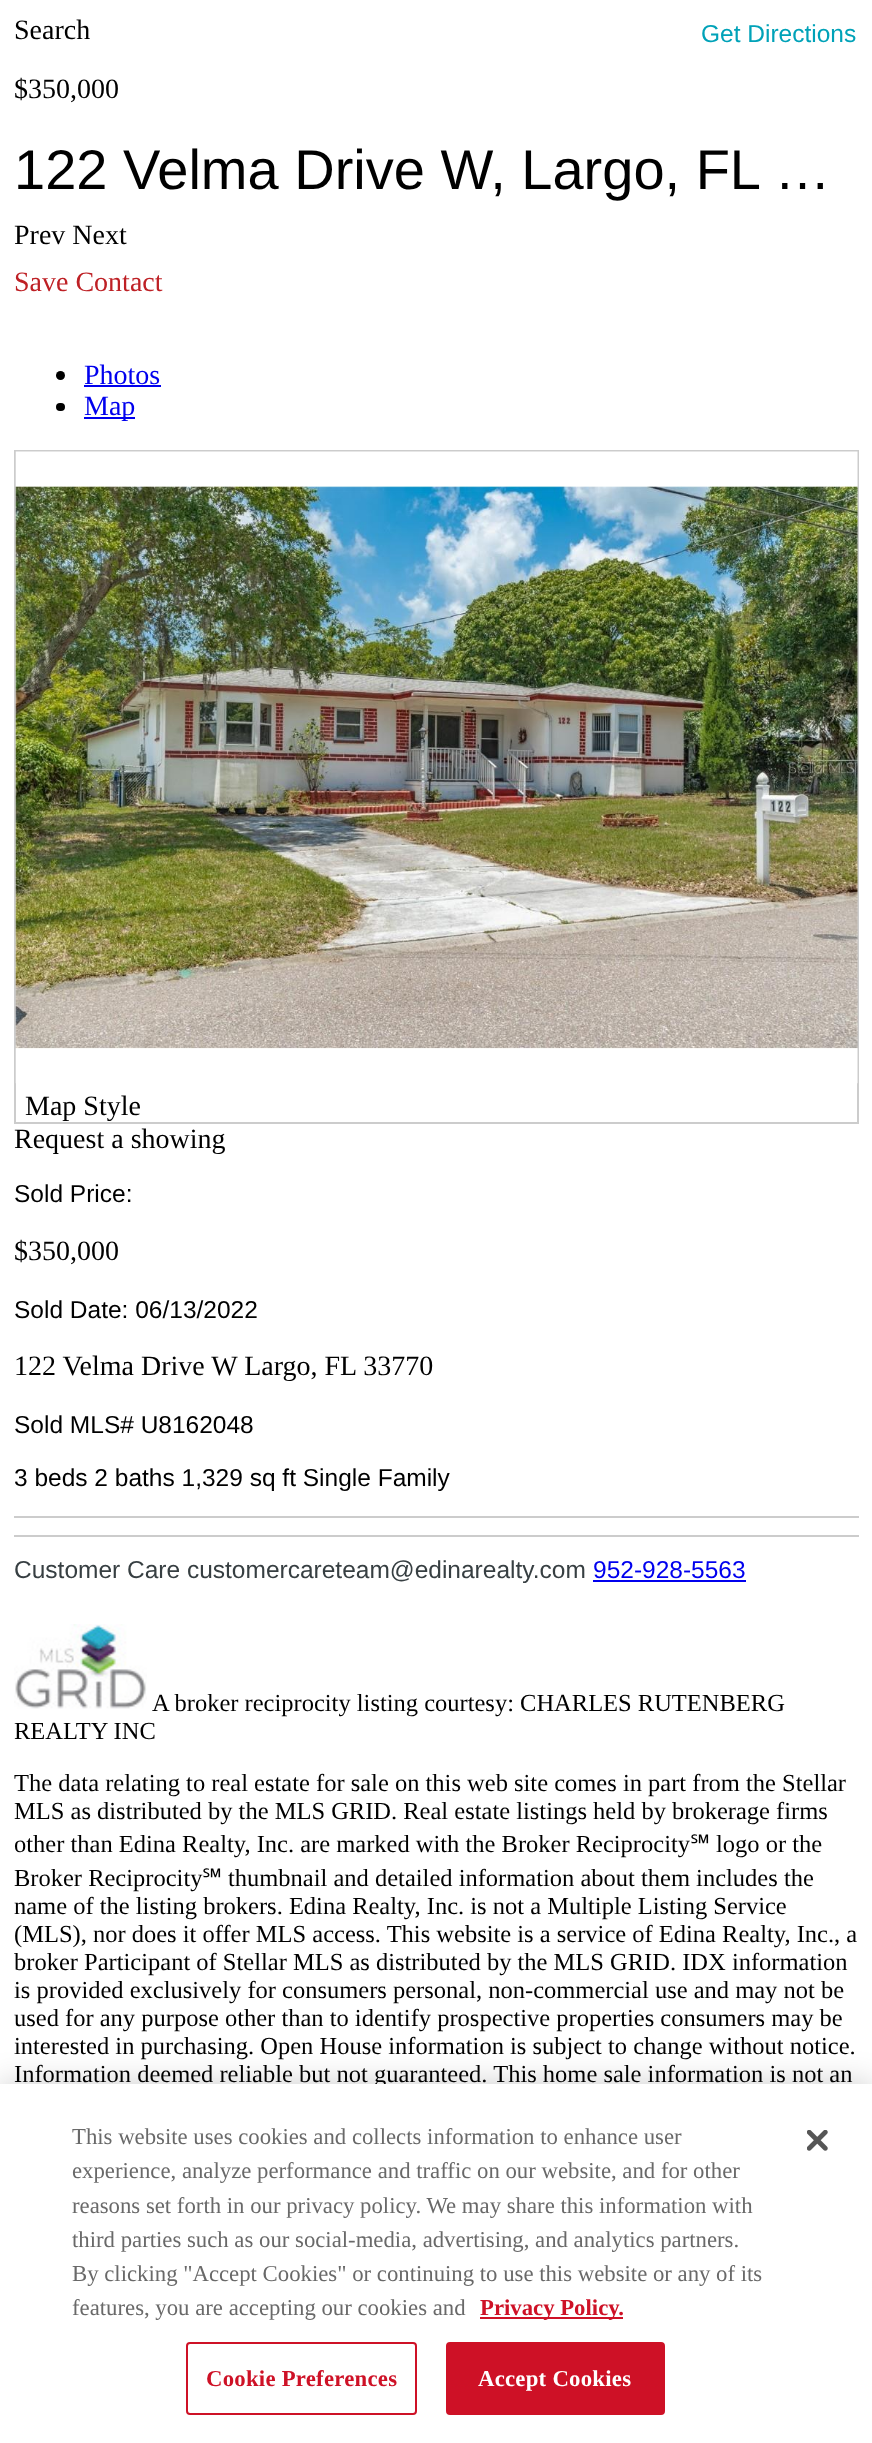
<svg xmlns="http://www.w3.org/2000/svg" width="872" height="2443">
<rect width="100%" height="100%" fill="#fff"/>
<text x="14" y="39" style="font-family:Liberation Serif;font-size:28px;fill:#000">Search</text>
<text x="14" y="98" style="font-family:Liberation Serif;font-size:28px;fill:#000">$350,000</text>
<text x="14" y="189" style="font-family:Liberation Sans;font-size:56px;fill:#000">122 Velma Drive W, Largo, FL …</text>
<text x="14" y="244" style="font-family:Liberation Serif;font-size:28px;fill:#000">Prev Next</text>
<text x="14" y="291" style="font-family:Liberation Serif;font-size:28px;fill:#be2025">Save Contact</text>
<rect x="15" y="451" width="843" height="672" fill="none" stroke="#ccc" stroke-width="2"/>
<text x="701" y="42" style="font-family:Liberation Sans;font-size:24.5px;fill:#00a2b8">Get Directions</text>
<text x="25" y="1115" style="font-family:Liberation Serif;font-size:28px;fill:#000">Map Style</text>
<image x="15" y="451" width="843" height="633" href="media/1.png"/>
<circle cx="60.5" cy="375.5" r="4.5" fill="#000"/>
<text x="84" y="384" style="font-family:Liberation Serif;font-size:28px;fill:#00e">Photos</text>
<rect x="84" y="385" width="77" height="2" fill="#00e"/>
<rect x="56" y="403" width="9" height="8" rx="4" fill="#000"/>
<rect x="84" y="417" width="51" height="2" fill="#00e"/>
<text x="84" y="415" style="font-family:Liberation Serif;font-size:28px;fill:#00e">Map</text>
<text x="14" y="1148" style="font-family:Liberation Serif;font-size:28px;fill:#000">Request a showing</text>
<text x="14" y="1202" style="font-family:Liberation Sans;font-size:24.5px;fill:#000">Sold Price:</text>
<text x="14" y="1260" style="font-family:Liberation Serif;font-size:28px;fill:#000">$350,000</text>
<text x="14" y="1318" style="font-family:Liberation Sans;font-size:24.5px;fill:#000">Sold Date: 06/13/2022</text>
<text x="14" y="1375" style="font-family:Liberation Serif;font-size:28px;fill:#000">122 Velma Drive W Largo, FL 33770</text>
<text x="14" y="1433" style="font-family:Liberation Sans;font-size:24.5px;fill:#000">Sold MLS# U8162048</text>
<text x="14" y="1486" style="font-family:Liberation Sans;font-size:24.5px;fill:#000">3 beds 2 baths 1,329 sq ft Single Family</text>
<rect x="14" y="1516" width="845" height="2" fill="#ccc"/>
<rect x="14" y="1535" width="845" height="2" fill="#ccc"/>
<text x="14" y="1578" style="font-family:Liberation Sans;font-size:24.5px;fill:#373f42">Customer Care customercareteam@edinarealty.com</text>
<text x="593" y="1578" style="font-family:Liberation Sans;font-size:24.5px;fill:#00e">952-928-5563</text>
<rect x="593" y="1580" width="153" height="2" fill="#00e"/>
<image x="14" y="1624" width="133" height="85" href="media/2.png"/>
<text x="152" y="1711" style="font-family:Liberation Serif;font-size:24.5px;fill:#000">A broker reciprocity listing courtesy: CHARLES RUTENBERG</text>
<text x="14" y="1739" style="font-family:Liberation Serif;font-size:24.5px;fill:#000">REALTY INC</text>
<text x="14" y="1791" style="font-family:Liberation Serif;font-size:24.5px;fill:#000">The data relating to real estate for sale on this web site comes in part from the Stellar</text>
<text x="14" y="1819" style="font-family:Liberation Serif;font-size:24.5px;fill:#000">MLS as distributed by the MLS GRID. Real estate listings held by brokerage firms</text>
<text x="14" y="1852" style="font-family:Liberation Serif;font-size:24.5px;fill:#000">other than Edina Realty, Inc. are marked with the Broker Reciprocity</text>
<text x="690" y="1852" style="font-family:Noto Sans;font-size:24.5px;fill:#000">℠</text>
<text x="716" y="1852" style="font-family:Liberation Serif;font-size:24.5px;fill:#000">logo or the</text>
<text x="14" y="1886" style="font-family:Liberation Serif;font-size:24.5px;fill:#000">Broker Reciprocity</text>
<text x="202" y="1886" style="font-family:Noto Sans;font-size:24.5px;fill:#000">℠</text>
<text x="228" y="1886" style="font-family:Liberation Serif;font-size:24.5px;fill:#000">thumbnail and detailed information about them includes the</text>
<text x="14" y="1914" style="font-family:Liberation Serif;font-size:24.5px;fill:#000">name of the listing brokers. Edina Realty, Inc. is not a Multiple Listing Service</text>
<text x="14" y="1942" style="font-family:Liberation Serif;font-size:24.5px;fill:#000">(MLS), nor does it offer MLS access. This website is a service of Edina Realty, Inc., a</text>
<text x="14" y="1970" style="font-family:Liberation Serif;font-size:24.5px;fill:#000">broker Participant of Stellar MLS as distributed by the MLS GRID. IDX information</text>
<text x="14" y="1998" style="font-family:Liberation Serif;font-size:24.5px;fill:#000">is provided exclusively for consumers personal, non-commercial use and may not be</text>
<text x="14" y="2026" style="font-family:Liberation Serif;font-size:24.5px;fill:#000">used for any purpose other than to identify prospective properties consumers may be</text>
<text x="14" y="2054" style="font-family:Liberation Serif;font-size:24.5px;fill:#000">interested in purchasing. Open House information is subject to change without notice.</text>
<text x="14" y="2082" style="font-family:Liberation Serif;font-size:24.5px;fill:#000">Information deemed reliable but not guaranteed. This home sale information is not an</text>
<rect y="2084" width="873" height="359" fill="#00000033" filter="blur(16px)"/>
<rect y="2084" width="872" height="359" fill="#fff"/>
<text x="72" y="2144" style="font-family:Liberation Serif;font-size:22.75px;fill:#696969">This website uses cookies and collects information to enhance user</text>
<text x="72" y="2178" style="font-family:Liberation Serif;font-size:22.75px;fill:#696969">experience, analyze performance and traffic on our website, and for other</text>
<text x="72" y="2213" style="font-family:Liberation Serif;font-size:22.75px;fill:#696969">reasons set forth in our privacy policy. We may share this information with</text>
<text x="72" y="2247" style="font-family:Liberation Serif;font-size:22.75px;fill:#696969">third parties such as our social-media, advertising, and analytics partners.</text>
<text x="72" y="2281" style="font-family:Liberation Serif;font-size:22.75px;fill:#696969">By clicking "Accept Cookies" or continuing to use this website or any of its</text>
<text x="72" y="2315" style="font-family:Liberation Serif;font-size:22.75px;fill:#696969">features, you are accepting our cookies and</text>
<rect x="480" y="2317" width="143" height="2" fill="#ce1126"/>
<text x="480" y="2315" style="font-family:Liberation Serif;font-size:22.75px;font-weight:bold;fill:#ce1126">Privacy Policy.</text>
<rect x="187" y="2343" width="229" height="71" rx="3" fill="none" stroke="#ce1126" stroke-width="2"/>
<text x="206" y="2386" style="font-family:Liberation Serif;font-size:22.75px;font-weight:bold;letter-spacing:0.25px;fill:#ce1126">Cookie Preferences</text>
<rect x="447" y="2343" width="217" height="71" rx="3" fill="#ce1126" stroke="#ce1126" stroke-width="2"/>
<text x="478" y="2386" style="font-family:Liberation Serif;font-size:22.75px;font-weight:bold;letter-spacing:0.25px;fill:#fff">Accept Cookies</text>
<image x="807" y="2130" width="21" height="21" href="media/3.png"/>
</svg>
